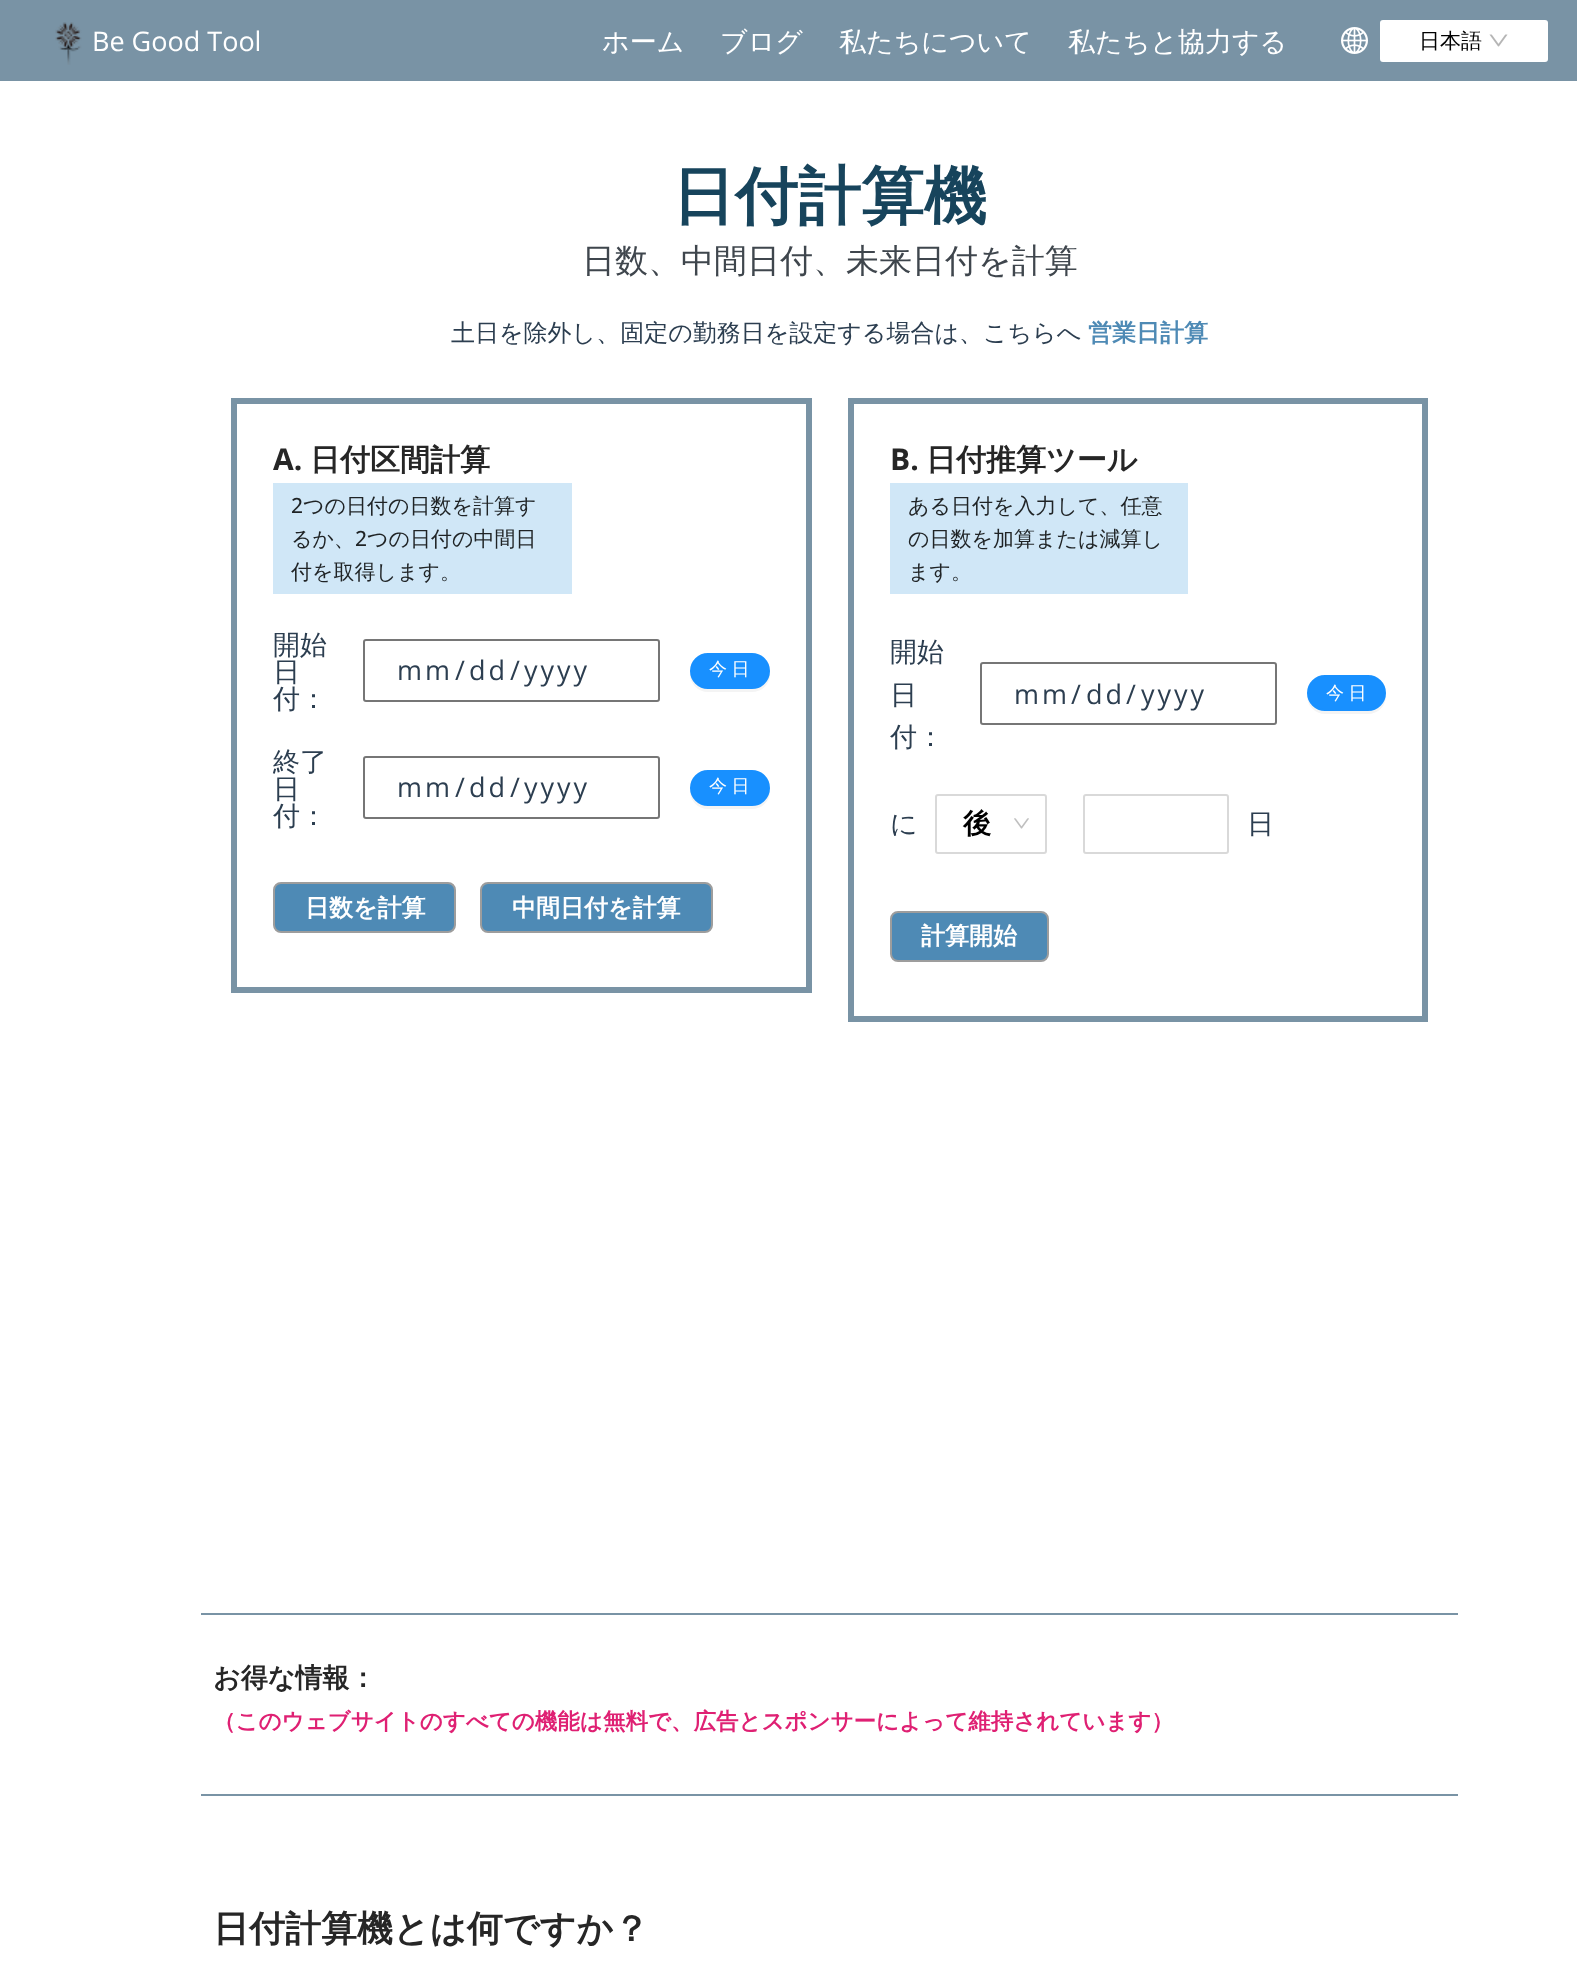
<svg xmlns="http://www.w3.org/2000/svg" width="1577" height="1962">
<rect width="100%" height="100%" fill="#fff"/>
<rect width="1577" height="81" fill="#7993a5"/>
<image x="55" y="22" width="27" height="43" href="media/1.png"/>
<text x="92" y="51" style="font-family:Open Sans;font-size:27px;fill:#fff">Be Good Tool</text>
<text x="602" y="51" style="font-family:WenQuanYi Zen Hei;font-size:27px;font-weight:500;fill:#fff">ホーム</text>
<text x="720" y="51" style="font-family:WenQuanYi Zen Hei;font-size:27px;font-weight:500;fill:#fff">ブログ</text>
<text x="839" y="51" style="font-family:WenQuanYi Zen Hei;font-size:27px;font-weight:500;fill:#fff">私たちについて</text>
<text x="1068" y="51" style="font-family:WenQuanYi Zen Hei;font-size:27px;font-weight:500;fill:#fff">私たちと協力する</text>
<image x="1341" y="27" width="27" height="27" href="media/2.png"/>
<rect x="1380" y="20" width="168" height="42" rx="3" fill="#fff"/>
<text x="1419" y="48" style="font-family:WenQuanYi Zen Hei;font-size:21px;font-weight:500;fill:#000">日本語</text>
<image x="1489" y="34" width="19" height="13" href="media/3.png"/>
<text x="672" y="218" style="font-family:WenQuanYi Zen Hei;font-size:63px;font-weight:bold;fill:#17445c">日付計算機</text>
<text x="582" y="272" style="font-family:WenQuanYi Zen Hei;font-size:33px;font-weight:500;fill:#3f464d">日数、中間日付、未来日付を計算</text>
<text x="451" y="341" style="font-family:WenQuanYi Zen Hei;font-size:24px;font-weight:500;fill:#2c3e50">土日を除外し、固定の勤務日を設定する場合は、こちらへ</text>
<text x="1088" y="341" style="font-family:WenQuanYi Zen Hei;font-size:24px;font-weight:bold;fill:#4e8ab5">営業日計算</text>
<rect x="234" y="401" width="575" height="589" fill="none" stroke="#7993a5" stroke-width="6"/>
<text x="273" y="470" style="font-family:Open Sans;font-size:30px;font-weight:bold;fill:#262626">A.</text>
<text x="310" y="470" style="font-family:WenQuanYi Zen Hei;font-size:30px;font-weight:bold;fill:#262626">日付区間計算</text>
<rect x="273" y="483" width="299" height="111" fill="#d0e7f7"/>
<text x="291" y="513" style="font-family:Open Sans;font-size:21px;font-weight:500;fill:#1f2325">2</text>
<text x="303" y="513" style="font-family:WenQuanYi Zen Hei;font-size:21px;font-weight:500;fill:#1f2325">つの日付の日数を計算す</text>
<text x="291" y="546" style="font-family:WenQuanYi Zen Hei;font-size:21px;font-weight:500;fill:#1f2325">るか、</text>
<text x="355" y="546" style="font-family:Open Sans;font-size:21px;font-weight:500;fill:#1f2325">2</text>
<text x="367" y="546" style="font-family:WenQuanYi Zen Hei;font-size:21px;font-weight:500;fill:#1f2325">つの日付の中間日</text>
<text x="291" y="579" style="font-family:WenQuanYi Zen Hei;font-size:21px;font-weight:500;fill:#1f2325">付を取得します。</text>
<text x="273" y="654" style="font-family:WenQuanYi Zen Hei;font-size:27px;font-weight:500;fill:#2c3e50">開始</text>
<text x="273" y="681" style="font-family:WenQuanYi Zen Hei;font-size:27px;font-weight:500;fill:#2c3e50">日</text>
<text x="273" y="708" style="font-family:WenQuanYi Zen Hei;font-size:27px;font-weight:500;fill:#2c3e50">付：</text>
<rect x="364" y="640" width="295" height="61" rx="2" fill="none" stroke="#767676" stroke-width="2"/>
<text x="397" y="680" style="font-family:Open Sans;font-size:27px;letter-spacing:3px;fill:#2c3e50">mm</text>
<text x="455" y="680" style="font-family:Open Sans;font-size:27px;letter-spacing:3px;fill:#2c3e50">/</text>
<text x="469" y="680" style="font-family:Open Sans;font-size:27px;letter-spacing:3px;fill:#2c3e50">dd</text>
<text x="510" y="680" style="font-family:Open Sans;font-size:27px;letter-spacing:3px;fill:#2c3e50">/</text>
<text x="524" y="680" style="font-family:Open Sans;font-size:27px;letter-spacing:3px;fill:#2c3e50">yyyy</text>
<path d="M690 672v2c0 10 8 18 18 18h44c10 0 18-8 18-18l-1-4h1c0 10-9 18-18 18h-44c-9 0-17-7-18-16z" fill="#f4f4f4"/>
<rect x="691" y="654" width="78" height="34" rx="17" fill="#1890ff" stroke="#1890ff" stroke-width="2"/>
<text x="709" y="675" word-spacing="-1" style="font-family:WenQuanYi Zen Hei;font-size:18px;font-weight:500;fill:#fff">今 日</text>
<text x="273" y="771" style="font-family:WenQuanYi Zen Hei;font-size:27px;font-weight:500;fill:#2c3e50">終了</text>
<text x="273" y="798" style="font-family:WenQuanYi Zen Hei;font-size:27px;font-weight:500;fill:#2c3e50">日</text>
<text x="273" y="825" style="font-family:WenQuanYi Zen Hei;font-size:27px;font-weight:500;fill:#2c3e50">付：</text>
<rect x="364" y="757" width="295" height="61" rx="2" fill="none" stroke="#767676" stroke-width="2"/>
<text x="397" y="797" style="font-family:Open Sans;font-size:27px;letter-spacing:3px;fill:#2c3e50">mm</text>
<text x="455" y="797" style="font-family:Open Sans;font-size:27px;letter-spacing:3px;fill:#2c3e50">/</text>
<text x="469" y="797" style="font-family:Open Sans;font-size:27px;letter-spacing:3px;fill:#2c3e50">dd</text>
<text x="510" y="797" style="font-family:Open Sans;font-size:27px;letter-spacing:3px;fill:#2c3e50">/</text>
<text x="524" y="797" style="font-family:Open Sans;font-size:27px;letter-spacing:3px;fill:#2c3e50">yyyy</text>
<path d="M690 789v2c0 10 8 18 18 18h44c10 0 18-8 18-18l-1-4l1 1c0 9-9 18-18 18h-44c-9 0-17-8-18-17z" fill="#f4f4f4"/>
<rect x="691" y="771" width="78" height="34" rx="17" fill="#1890ff" stroke="#1890ff" stroke-width="2"/>
<text x="709" y="792" word-spacing="-1" style="font-family:WenQuanYi Zen Hei;font-size:18px;font-weight:500;fill:#fff">今 日</text>
<rect x="274" y="883" width="181" height="49" rx="7" fill="#4e8ab5" stroke="#9d9d9d" stroke-width="2"/>
<text x="305" y="916" style="font-family:WenQuanYi Zen Hei;font-size:24px;font-weight:bold;fill:#fff">日数を計算</text>
<rect x="481" y="883" width="231" height="49" rx="7" fill="#4e8ab5" stroke="#9d9d9d" stroke-width="2"/>
<text x="512" y="916" style="font-family:WenQuanYi Zen Hei;font-size:24px;font-weight:bold;fill:#fff">中間日付を計算</text>
<rect x="851" y="401" width="574" height="618" fill="none" stroke="#7993a5" stroke-width="6"/>
<text x="890" y="470" style="font-family:Open Sans;font-size:30px;font-weight:bold;fill:#262626">B.</text>
<text x="926" y="470" style="font-family:WenQuanYi Zen Hei;font-size:30px;font-weight:bold;fill:#262626">日付推算ツール</text>
<rect x="890" y="483" width="298" height="111" fill="#d0e7f7"/>
<text x="908" y="513" style="font-family:WenQuanYi Zen Hei;font-size:21px;font-weight:500;fill:#1f2325">ある日付を入力して、任意</text>
<text x="908" y="546" style="font-family:WenQuanYi Zen Hei;font-size:21px;font-weight:500;fill:#1f2325">の日数を加算または減算し</text>
<text x="908" y="579" style="font-family:WenQuanYi Zen Hei;font-size:21px;font-weight:500;fill:#1f2325">ます。</text>
<text x="890" y="661" style="font-family:WenQuanYi Zen Hei;font-size:27px;font-weight:500;fill:#2c3e50">開始</text>
<text x="890" y="704" style="font-family:WenQuanYi Zen Hei;font-size:27px;font-weight:500;fill:#2c3e50">日</text>
<text x="890" y="746" style="font-family:WenQuanYi Zen Hei;font-size:27px;font-weight:500;fill:#2c3e50">付：</text>
<rect x="981" y="663" width="295" height="61" rx="2" fill="none" stroke="#767676" stroke-width="2"/>
<text x="1014" y="704" style="font-family:Open Sans;font-size:27px;letter-spacing:3px;fill:#2c3e50">mm</text>
<text x="1071" y="704" style="font-family:Open Sans;font-size:27px;letter-spacing:3px;fill:#2c3e50">/</text>
<text x="1086" y="704" style="font-family:Open Sans;font-size:27px;letter-spacing:3px;fill:#2c3e50">dd</text>
<text x="1126" y="704" style="font-family:Open Sans;font-size:27px;letter-spacing:3px;fill:#2c3e50">/</text>
<text x="1141" y="704" style="font-family:Open Sans;font-size:27px;letter-spacing:3px;fill:#2c3e50">yyyy</text>
<path d="M1307 697c1 10 9 17 18 17h43c10 0 18-8 18-18v-2c-1 10-9 17-18 17h-44c-8 0-15-6-17-14z" fill="#f4f4f4"/>
<rect x="1308" y="676" width="77" height="34" rx="17" fill="#1890ff" stroke="#1890ff" stroke-width="2"/>
<text x="1326" y="699" word-spacing="-1" style="font-family:WenQuanYi Zen Hei;font-size:18px;font-weight:500;fill:#fff">今 日</text>
<text x="890" y="833" style="font-family:WenQuanYi Zen Hei;font-size:27px;font-weight:500;fill:#2c3e50">に</text>
<rect x="936" y="795" width="110" height="58" rx="2" fill="none" stroke="#d9d9d9" stroke-width="2"/>
<text x="963" y="833" style="font-family:WenQuanYi Zen Hei;font-size:28px;font-weight:bold;fill:#000">後</text>
<image x="1014" y="818" width="15" height="11" href="media/4.png"/>
<rect x="1084" y="795" width="144" height="58" rx="2" fill="none" stroke="#d9d9d9" stroke-width="2"/>
<text x="1247" y="833" style="font-family:WenQuanYi Zen Hei;font-size:27px;font-weight:500;fill:#2c3e50">日</text>
<rect x="891" y="912" width="157" height="49" rx="7" fill="#4e8ab5" stroke="#9d9d9d" stroke-width="2"/>
<text x="921" y="944" style="font-family:WenQuanYi Zen Hei;font-size:24px;font-weight:bold;fill:#fff">計算開始</text>
<rect x="201" y="1613" width="1257" height="2" fill="#7993a5"/>
<rect x="201" y="1794" width="1257" height="2" fill="#7993a5"/>
<text x="213" y="1687" style="font-family:WenQuanYi Zen Hei;font-size:27px;font-weight:bold;fill:#262626">お得な情報：</text>
<text x="213" y="1729" style="font-family:WenQuanYi Zen Hei;font-size:22.5px;font-weight:bold;fill:#df2073">（このウェブサイトのすべての機能は無料で、広告とスポンサーによって維持されています）</text>
<text x="213" y="1941" style="font-family:WenQuanYi Zen Hei;font-size:36px;font-weight:bold;fill:#262626">日付計算機とは何ですか？</text>
</svg>
